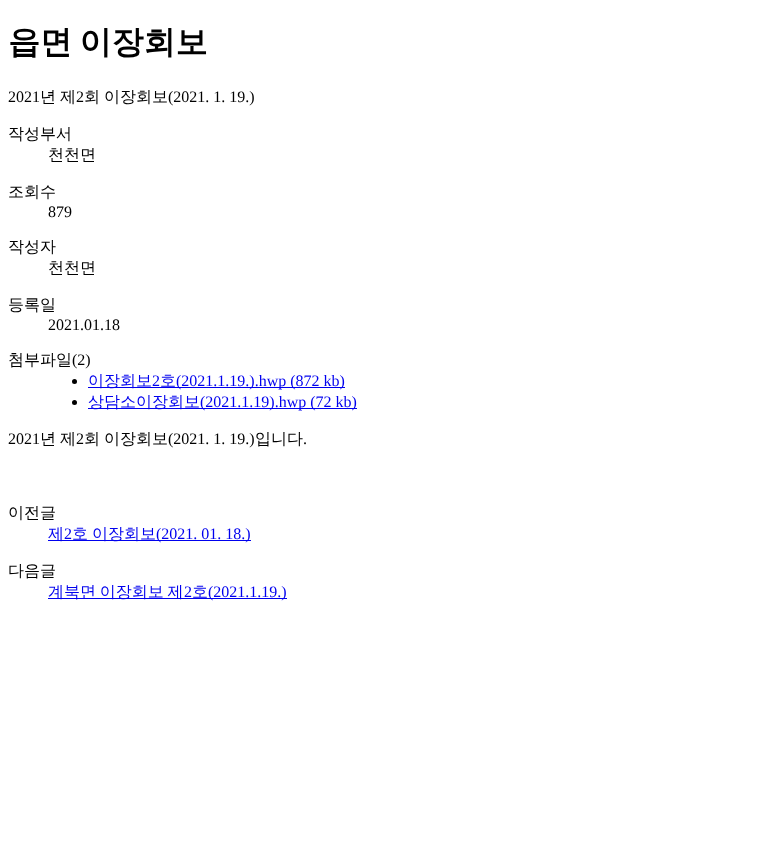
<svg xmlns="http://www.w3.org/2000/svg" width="771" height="860">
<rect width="100%" height="100%" fill="#fff"/>
<text x="8" y="53" word-spacing="-2" style="font-family:WenQuanYi Zen Hei;font-size:32px;font-weight:bold;fill:#000">읍면 이장회보</text>
<text x="8" y="102" style="font-family:Liberation Serif;font-size:16px;fill:#000">2021</text>
<text x="40" y="102" style="font-family:WenQuanYi Zen Hei;font-size:16px;font-weight:500;fill:#000">년</text>
<text x="60" y="102" style="font-family:WenQuanYi Zen Hei;font-size:16px;font-weight:500;fill:#000">제</text>
<text x="76" y="102" style="font-family:Liberation Serif;font-size:16px;fill:#000">2</text>
<text x="84" y="102" style="font-family:WenQuanYi Zen Hei;font-size:16px;font-weight:500;fill:#000">회</text>
<text x="104" y="102" style="font-family:WenQuanYi Zen Hei;font-size:16px;font-weight:500;fill:#000">이장회보</text>
<text x="168" y="102" style="font-family:Liberation Serif;font-size:16px;fill:#000">(2021. 1. 19.)</text>
<text x="8" y="139" style="font-family:WenQuanYi Zen Hei;font-size:16px;font-weight:500;fill:#000">작성부서</text>
<text x="48" y="160" style="font-family:WenQuanYi Zen Hei;font-size:16px;font-weight:500;fill:#000">천천면</text>
<text x="8" y="197" style="font-family:WenQuanYi Zen Hei;font-size:16px;font-weight:500;fill:#000">조회수</text>
<text x="48" y="217" style="font-family:Liberation Serif;font-size:16px;fill:#000">879</text>
<text x="8" y="252" style="font-family:WenQuanYi Zen Hei;font-size:16px;font-weight:500;fill:#000">작성자</text>
<text x="48" y="273" style="font-family:WenQuanYi Zen Hei;font-size:16px;font-weight:500;fill:#000">천천면</text>
<text x="8" y="310" style="font-family:WenQuanYi Zen Hei;font-size:16px;font-weight:500;fill:#000">등록일</text>
<text x="48" y="330" style="font-family:Liberation Serif;font-size:16px;fill:#000">2021.01.18</text>
<text x="8" y="365" style="font-family:WenQuanYi Zen Hei;font-size:16px;font-weight:500;fill:#000">첨부파일</text>
<text x="72" y="365" style="font-family:Liberation Serif;font-size:16px;fill:#000">(2)</text>
<circle cx="74.5" cy="381.5" r="2.5" fill="#000"/>
<rect x="88" y="387" width="257" height="1" fill="#00e"/>
<text x="88" y="386" style="font-family:WenQuanYi Zen Hei;font-size:16px;font-weight:500;fill:#00e">이장회보</text>
<text x="152" y="386" style="font-family:Liberation Serif;font-size:16px;fill:#00e">2</text>
<text x="160" y="386" style="font-family:WenQuanYi Zen Hei;font-size:16px;font-weight:500;fill:#00e">호</text>
<text x="176" y="386" style="font-family:Liberation Serif;font-size:16px;fill:#00e">(2021.1.19.).hwp (872 kb)</text>
<circle cx="74.5" cy="402.5" r="2.5" fill="#000"/>
<rect x="88" y="408" width="269" height="1" fill="#00e"/>
<text x="88" y="407" style="font-family:WenQuanYi Zen Hei;font-size:16px;font-weight:500;fill:#00e">상담소이장회보</text>
<text x="200" y="407" style="font-family:Liberation Serif;font-size:16px;fill:#00e">(2021.1.19).hwp (72 kb)</text>
<text x="8" y="444" style="font-family:Liberation Serif;font-size:16px;fill:#000">2021</text>
<text x="40" y="444" style="font-family:WenQuanYi Zen Hei;font-size:16px;font-weight:500;fill:#000">년</text>
<text x="60" y="444" style="font-family:WenQuanYi Zen Hei;font-size:16px;font-weight:500;fill:#000">제</text>
<text x="76" y="444" style="font-family:Liberation Serif;font-size:16px;fill:#000">2</text>
<text x="84" y="444" style="font-family:WenQuanYi Zen Hei;font-size:16px;font-weight:500;fill:#000">회</text>
<text x="104" y="444" style="font-family:WenQuanYi Zen Hei;font-size:16px;font-weight:500;fill:#000">이장회보</text>
<text x="168" y="444" style="font-family:Liberation Serif;font-size:16px;fill:#000">(2021. 1. 19.)</text>
<text x="255" y="444" style="font-family:WenQuanYi Zen Hei;font-size:16px;font-weight:500;fill:#000">입니다</text>
<text x="303" y="444" style="font-family:Liberation Serif;font-size:16px;fill:#000">.</text>
<text x="8" y="518" style="font-family:WenQuanYi Zen Hei;font-size:16px;font-weight:500;fill:#000">이전글</text>
<rect x="48" y="540" width="203" height="1" fill="#00e"/>
<text x="48" y="539" style="font-family:WenQuanYi Zen Hei;font-size:16px;font-weight:500;fill:#00e">제</text>
<text x="64" y="539" style="font-family:Liberation Serif;font-size:16px;fill:#00e">2</text>
<text x="72" y="539" style="font-family:WenQuanYi Zen Hei;font-size:16px;font-weight:500;fill:#00e">호</text>
<text x="92" y="539" style="font-family:WenQuanYi Zen Hei;font-size:16px;font-weight:500;fill:#00e">이장회보</text>
<text x="156" y="539" style="font-family:Liberation Serif;font-size:16px;fill:#00e">(2021. 01. 18.)</text>
<text x="8" y="576" style="font-family:WenQuanYi Zen Hei;font-size:16px;font-weight:500;fill:#000">다음글</text>
<rect x="48" y="598" width="239" height="1" fill="#00e"/>
<text x="48" y="597" word-spacing="-1" style="font-family:WenQuanYi Zen Hei;font-size:16px;font-weight:500;fill:#00e">계북면 이장회보 제</text>
<text x="184" y="597" style="font-family:Liberation Serif;font-size:16px;fill:#00e">2</text>
<text x="192" y="597" style="font-family:WenQuanYi Zen Hei;font-size:16px;font-weight:500;fill:#00e">호</text>
<text x="208" y="597" style="font-family:Liberation Serif;font-size:16px;fill:#00e">(2021.1.19.)</text>
</svg>
